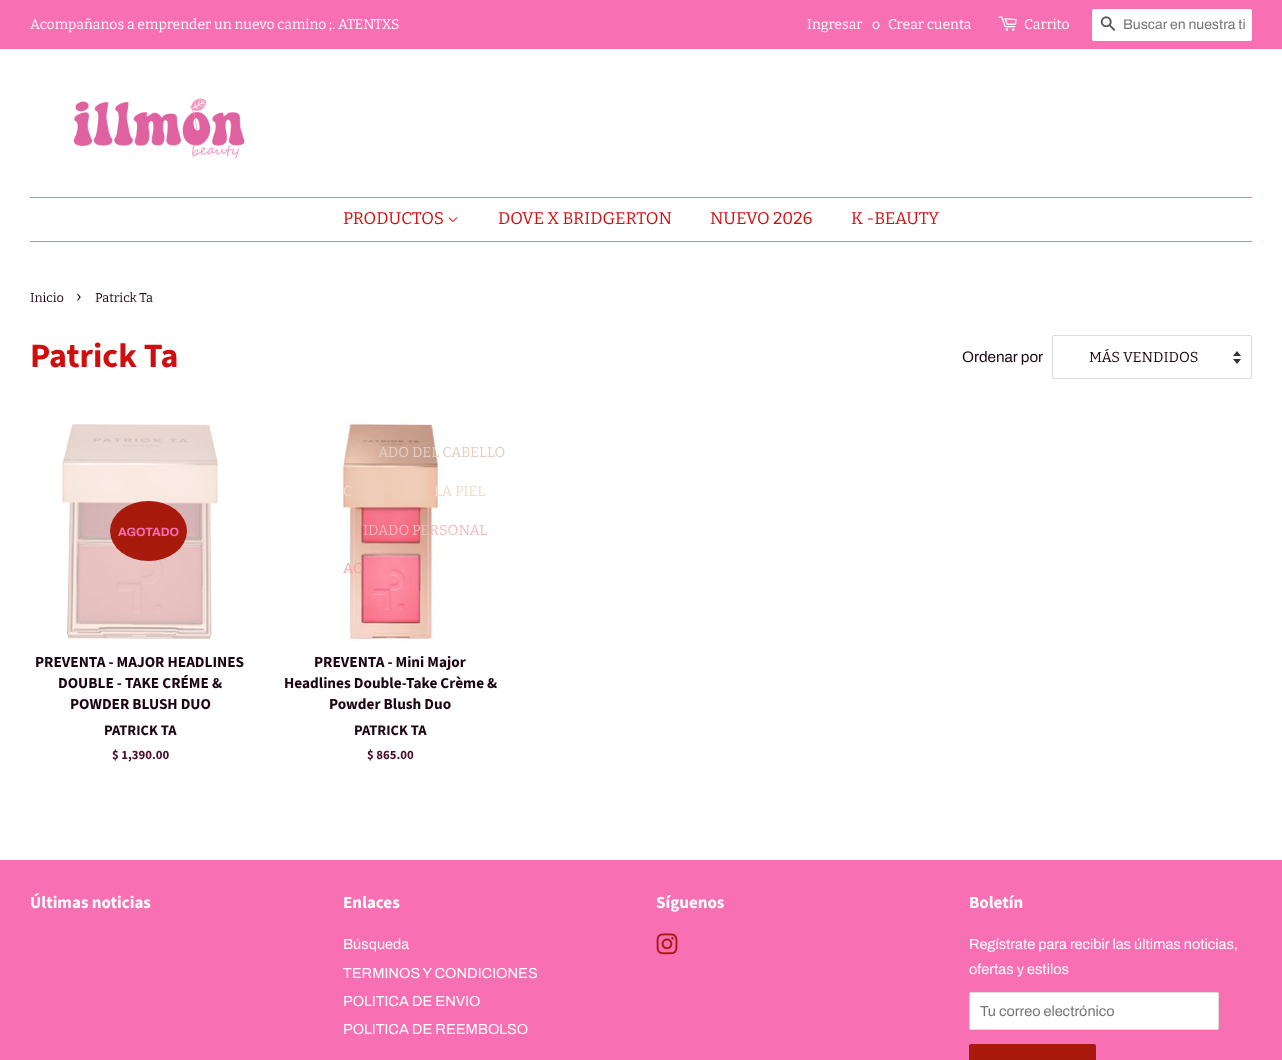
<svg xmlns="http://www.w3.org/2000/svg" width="1282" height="1060">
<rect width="100%" height="100%" fill="#fff"/>
<rect width="1282" height="49" fill="#f86fb3"/>
<text x="30" y="29" style="font-family:Bitter;font-size:14px;fill:#fff">Acompañanos a emprender un nuevo camino ;. ATENTXS</text>
<text x="807" y="29" style="font-family:Bitter;font-size:14px;fill:#fff">Ingresar</text>
<text x="872" y="29" style="font-family:Bitter;font-size:14px;fill:#fff">o</text>
<text x="888" y="29" style="font-family:Bitter;font-size:14px;fill:#fff">Crear cuenta</text>
<image x="998" y="16" width="19" height="15" href="media/1.png"/>
<text x="1024" y="29" style="font-family:Bitter;font-size:14px;fill:#fff">Carrito</text>
<rect x="1092" y="9" width="160" height="32" rx="2" fill="#fff"/>
<image x="1100" y="16" width="16" height="15" href="media/2.png"/>
<text x="1123" y="29" style="font-family:Archivo;font-size:14px;fill:#757575">Buscar en nuestra ti</text>
<image x="73" y="98" width="172" height="61" href="media/3.png"/>
<rect x="30" y="197" width="1222" height="1" fill="#f86fb3"/>
<rect x="30" y="241" width="1222" height="1" fill="#f86fb3"/>
<text x="343" y="224" style="font-family:Bitter;font-size:17px;fill:#d10e0e">PRODUCTOS</text>
<image x="448" y="217" width="9" height="5" href="media/4.png"/>
<image x="337" y="421" width="104" height="220" href="media/7.png"/>
<text x="378" y="457" style="font-family:Bitter;font-size:14.5px;fill:#e4cec4">ADO DEL CABELLO</text>
<text x="343" y="496" style="font-family:Bitter;font-size:14.5px;fill:#f3dbcc">C</text>
<text x="434" y="496" style="font-family:Bitter;font-size:14.5px;fill:#f3dbcc">LA PIEL</text>
<text x="363" y="535" style="font-family:Bitter;font-size:14.5px;fill:#f4b8bd">IDADO PERSONAL</text>
<text x="343" y="573" style="font-family:Bitter;font-size:14.5px;fill:#f4a0a9">AC</text>
<text x="498" y="224" style="font-family:Bitter;font-size:17px;fill:#d10e0e">DOVE X BRIDGERTON</text>
<text x="710" y="224" style="font-family:Bitter;font-size:17px;fill:#d10e0e">NUEVO 2026</text>
<text x="851" y="224" style="font-family:Bitter;font-size:17px;fill:#d10e0e">K -BEAUTY</text>
<text x="30" y="302" style="font-family:Bitter;font-size:12.75px;fill:#1c0510">Inicio</text>
<text x="76" y="302" style="font-family:Bitter;font-size:18px;fill:#1c0510">›</text>
<text x="95" y="302" style="font-family:Bitter;font-size:12.75px;fill:#1c0510">Patrick Ta</text>
<text x="30" y="367" style="font-family:Source Sans Pro;font-size:34px;font-weight:bold;fill:#d10e0e">Patrick Ta</text>
<text x="962" y="362" style="font-family:Archivo;font-size:15.25px;fill:#1c0510">Ordenar por</text>
<image x="1233" y="351" width="8" height="13" href="media/5.png"/>
<rect x="1052.5" y="335.5" width="199" height="43" rx="1.5" fill="none" stroke="#dddadb"/>
<text x="1089" y="362" style="font-family:Bitter;font-size:14.5px;fill:#1c0510">MÁS VENDIDOS</text>
<image x="62" y="422" width="156" height="218" href="media/6.png"/>
<ellipse cx="148.5" cy="531" rx="38.5" ry="30" fill="#a71a0c"/>
<text x="118" y="536" style="font-family:Archivo;font-size:12px;font-weight:bold;fill:#f86fb3">AGOTADO</text>
<text x="35" y="667" style="font-family:Source Sans Pro;font-size:15.25px;font-weight:bold;fill:#1c0510">PREVENTA - MAJOR HEADLINES</text>
<text x="58" y="688" style="font-family:Source Sans Pro;font-size:15.25px;font-weight:bold;fill:#1c0510">DOUBLE - TAKE CRÉME &amp;</text>
<text x="70" y="709" style="font-family:Source Sans Pro;font-size:15.25px;font-weight:bold;fill:#1c0510">POWDER BLUSH DUO</text>
<text x="104" y="735" style="font-family:Source Sans Pro;font-size:14.5px;font-weight:bold;fill:#1c0510">PATRICK TA</text>
<text x="112" y="759" style="font-family:Source Sans Pro;font-size:12.75px;font-weight:bold;fill:#470d29">$ 1,390.00</text>
<text x="314" y="667" style="font-family:Source Sans Pro;font-size:15.25px;font-weight:bold;fill:#1c0510">PREVENTA - Mini Major</text>
<text x="284" y="688" style="font-family:Source Sans Pro;font-size:15.25px;font-weight:bold;fill:#1c0510">Headlines Double-Take Crème &amp;</text>
<text x="329" y="709" style="font-family:Source Sans Pro;font-size:15.25px;font-weight:bold;fill:#1c0510">Powder Blush Duo</text>
<text x="354" y="735" style="font-family:Source Sans Pro;font-size:14.5px;font-weight:bold;fill:#1c0510">PATRICK TA</text>
<text x="367" y="759" style="font-family:Source Sans Pro;font-size:12.75px;font-weight:bold;fill:#470d29">$ 865.00</text>
<rect y="860" width="1282" height="200" fill="#f86fb3"/>
<text x="30" y="908" style="font-family:Source Sans Pro;font-size:17px;font-weight:bold;fill:#fff">Últimas noticias</text>
<text x="343" y="908" style="font-family:Source Sans Pro;font-size:17px;font-weight:bold;fill:#fff">Enlaces</text>
<text x="343" y="949" style="font-family:Archivo;font-size:14.5px;fill:#fff">Búsqueda</text>
<text x="343" y="978" style="font-family:Archivo;font-size:14.5px;fill:#fff">TERMINOS Y CONDICIONES</text>
<text x="343" y="1006" style="font-family:Archivo;font-size:14.5px;fill:#fff">POLITICA DE ENVIO</text>
<text x="343" y="1034" style="font-family:Archivo;font-size:14.5px;fill:#fff">POLITICA DE REEMBOLSO</text>
<text x="656" y="908" style="font-family:Source Sans Pro;font-size:17px;font-weight:bold;fill:#fff">Síguenos</text>
<image x="656" y="933" width="22" height="22" href="media/8.png"/>
<text x="969" y="908" style="font-family:Source Sans Pro;font-size:17px;font-weight:bold;fill:#fff">Boletín</text>
<text x="969" y="949" style="font-family:Archivo;font-size:14.5px;fill:#fff">Regístrate para recibir las últimas noticias,</text>
<text x="969" y="974" style="font-family:Archivo;font-size:14.5px;fill:#fff">ofertas y estilos</text>
<rect x="969" y="992" width="250" height="38" rx="2" fill="#fff"/>
<rect x="969.5" y="992.5" width="249" height="37" rx="1.5" fill="none" stroke="#1c051026"/>
<text x="980" y="1016" style="font-family:Archivo;font-size:14.5px;fill:#757575">Tu correo electrónico</text>
<rect x="969" y="1044" width="127" height="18" rx="2" fill="#a71a0c"/>
</svg>
